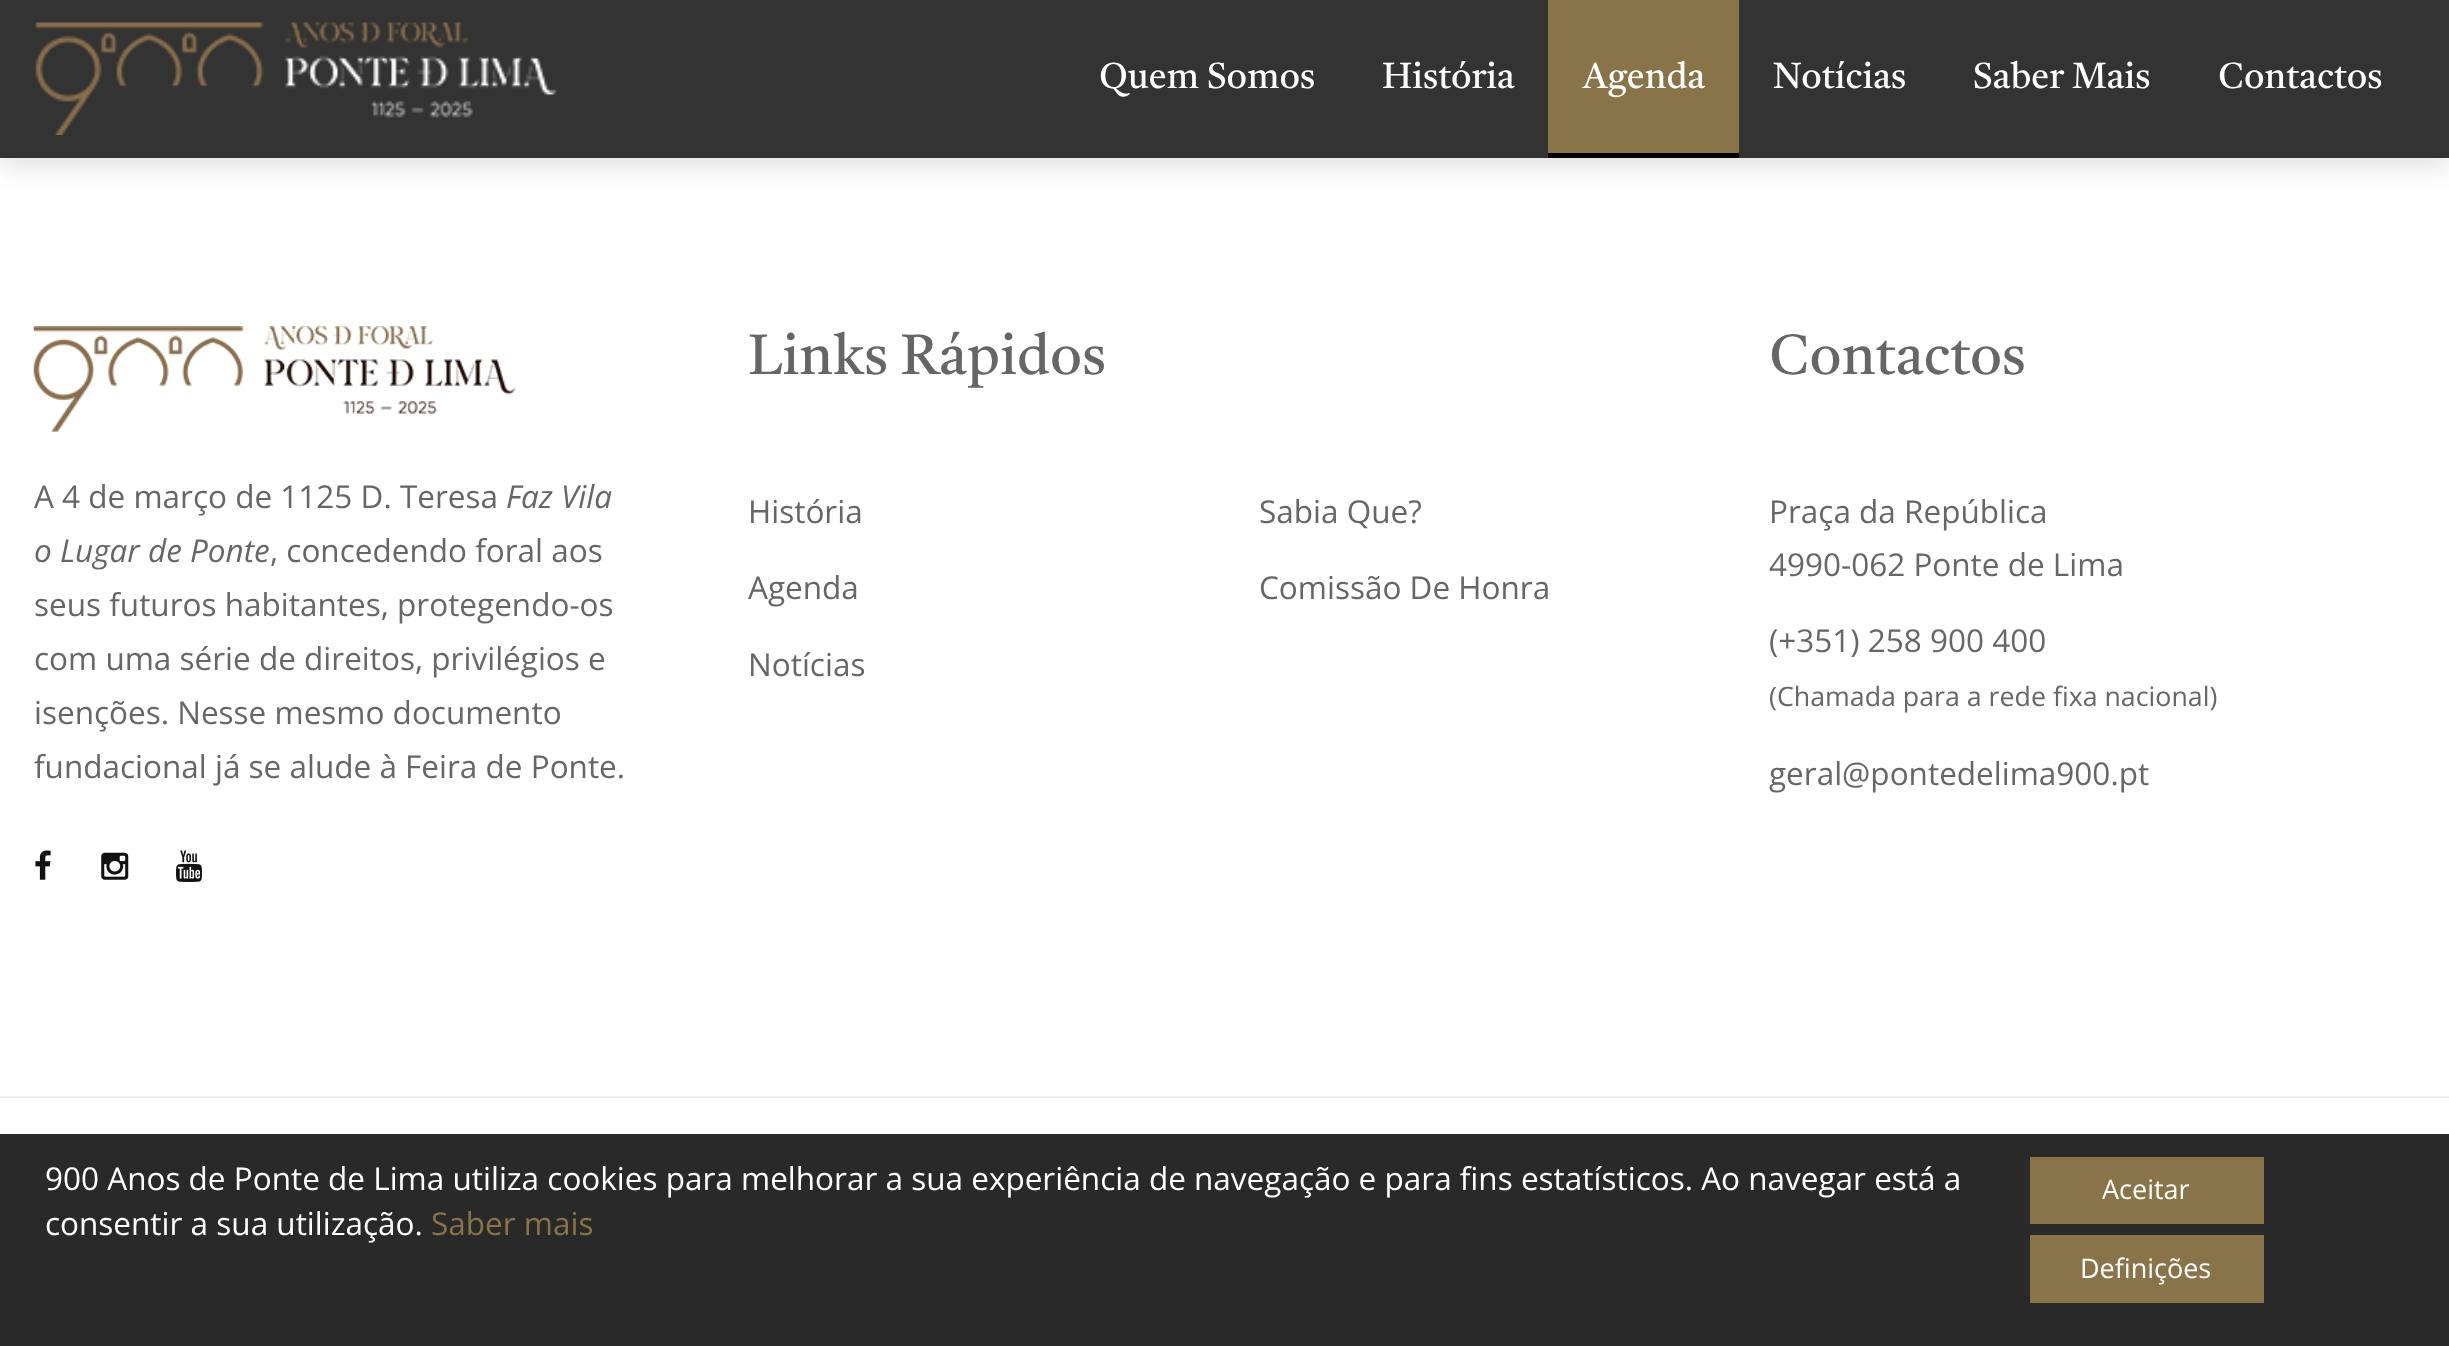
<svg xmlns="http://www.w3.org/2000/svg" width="2449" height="1346">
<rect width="100%" height="100%" fill="#fff"/>
<rect y="11" width="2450" height="158" fill="#0000001a" filter="blur(11px)"/>
<rect width="2449" height="158" fill="#333"/>
<image x="35" y="22" width="522" height="113" href="media/1.png"/>
<text x="1099" y="88" style="font-family:Tiro Gurmukhi;font-size:36px;fill:#fff">Quem Somos</text>
<text x="1382" y="88" style="font-family:Tiro Gurmukhi;font-size:36px;fill:#fff">História</text>
<rect x="1548" width="191" height="153" fill="#897348"/>
<text x="1583" y="88" style="font-family:Tiro Gurmukhi;font-size:36px;fill:#fff">Agenda</text>
<rect x="1548" y="153" width="191" height="5" fill="#000"/>
<text x="1773" y="88" style="font-family:Tiro Gurmukhi;font-size:36px;fill:#fff">Notícias</text>
<text x="1973" y="88" style="font-family:Tiro Gurmukhi;font-size:36px;fill:#fff">Saber Mais</text>
<text x="2218" y="88" style="font-family:Tiro Gurmukhi;font-size:36px;fill:#fff">Contactos</text>
<image x="33" y="326" width="483" height="106" href="media/2.png"/>
<text x="34" y="508" style="font-family:Open Sans;font-size:31.5px;fill:#666">A 4 de março de 1125 D. Teresa</text>
<text x="506" y="508" style="font-family:Open Sans;font-size:31.5px;font-style:italic;fill:#666">Faz Vila</text>
<text x="34" y="562" style="font-family:Open Sans;font-size:31.5px;font-style:italic;fill:#666">o Lugar de Ponte</text>
<text x="270" y="562" style="font-family:Open Sans;font-size:31.5px;fill:#666">, concedendo foral aos</text>
<text x="34" y="616" style="font-family:Open Sans;font-size:31.5px;fill:#666">seus futuros habitantes, protegendo-os</text>
<text x="34" y="670" style="font-family:Open Sans;font-size:31.5px;fill:#666">com uma série de direitos, privilégios e</text>
<text x="34" y="724" style="font-family:Open Sans;font-size:31.5px;fill:#666">isenções. Nesse mesmo documento</text>
<text x="34" y="778" style="font-family:Open Sans;font-size:31.5px;fill:#666">fundacional já se alude à Feira de Ponte.</text>
<image x="35" y="850" width="16" height="30" href="media/3.png"/>
<image x="101" y="852" width="28" height="28" href="media/4.png"/>
<image x="176" y="850" width="26" height="32" href="media/5.png"/>
<text x="748" y="374" style="font-family:Tiro Gurmukhi;font-size:56.25px;fill:#666">Links Rápidos</text>
<text x="748" y="523" style="font-family:Open Sans;font-size:31.5px;fill:#666">História</text>
<text x="748" y="599" style="font-family:Open Sans;font-size:31.5px;fill:#666">Agenda</text>
<text x="748" y="676" style="font-family:Open Sans;font-size:31.5px;fill:#666">Notícias</text>
<text x="1259" y="523" style="font-family:Open Sans;font-size:31.5px;fill:#666">Sabia Que?</text>
<text x="1259" y="599" style="font-family:Open Sans;font-size:31.5px;fill:#666">Comissão De Honra</text>
<text x="1769" y="374" style="font-family:Tiro Gurmukhi;font-size:56.25px;fill:#666">Contactos</text>
<text x="1769" y="523" style="font-family:Open Sans;font-size:31.5px;fill:#666">Praça da República</text>
<text x="1769" y="576" style="font-family:Open Sans;font-size:31.5px;fill:#666">4990-062 Ponte de Lima</text>
<text x="1769" y="652" style="font-family:Open Sans;font-size:31.5px;fill:#666">(+351) 258 900 400</text>
<text x="1769" y="706" style="font-family:Open Sans;font-size:26.75px;fill:#666">(Chamada para a rede fixa nacional)</text>
<text x="1769" y="785" style="font-family:Open Sans;font-size:31.5px;fill:#666">geral@pontedelima900.pt</text>
<rect y="1096" width="2449" height="2" fill="#ececec"/>
<rect y="1134" width="2449" height="212" fill="#292929"/>
<text x="45" y="1190" style="font-family:Open Sans;font-size:31.5px;fill:#fff">900 Anos de Ponte de Lima utiliza cookies para melhorar a sua experiência de navegação e para fins estatísticos. Ao navegar está a</text>
<text x="45" y="1235" style="font-family:Open Sans;font-size:31.5px;fill:#fff">consentir a sua utilização.</text>
<text x="431" y="1235" style="font-family:Open Sans;font-size:31.5px;fill:#897348">Saber mais</text>
<rect x="2030" y="1157" width="234" height="67" fill="#897348"/>
<text x="2102" y="1199" style="font-family:Open Sans;font-size:27px;fill:#fff">Aceitar</text>
<rect x="2030" y="1235" width="234" height="68" fill="#897348"/>
<text x="2080" y="1278" style="font-family:Open Sans;font-size:27px;fill:#fff">Definições</text>
</svg>
